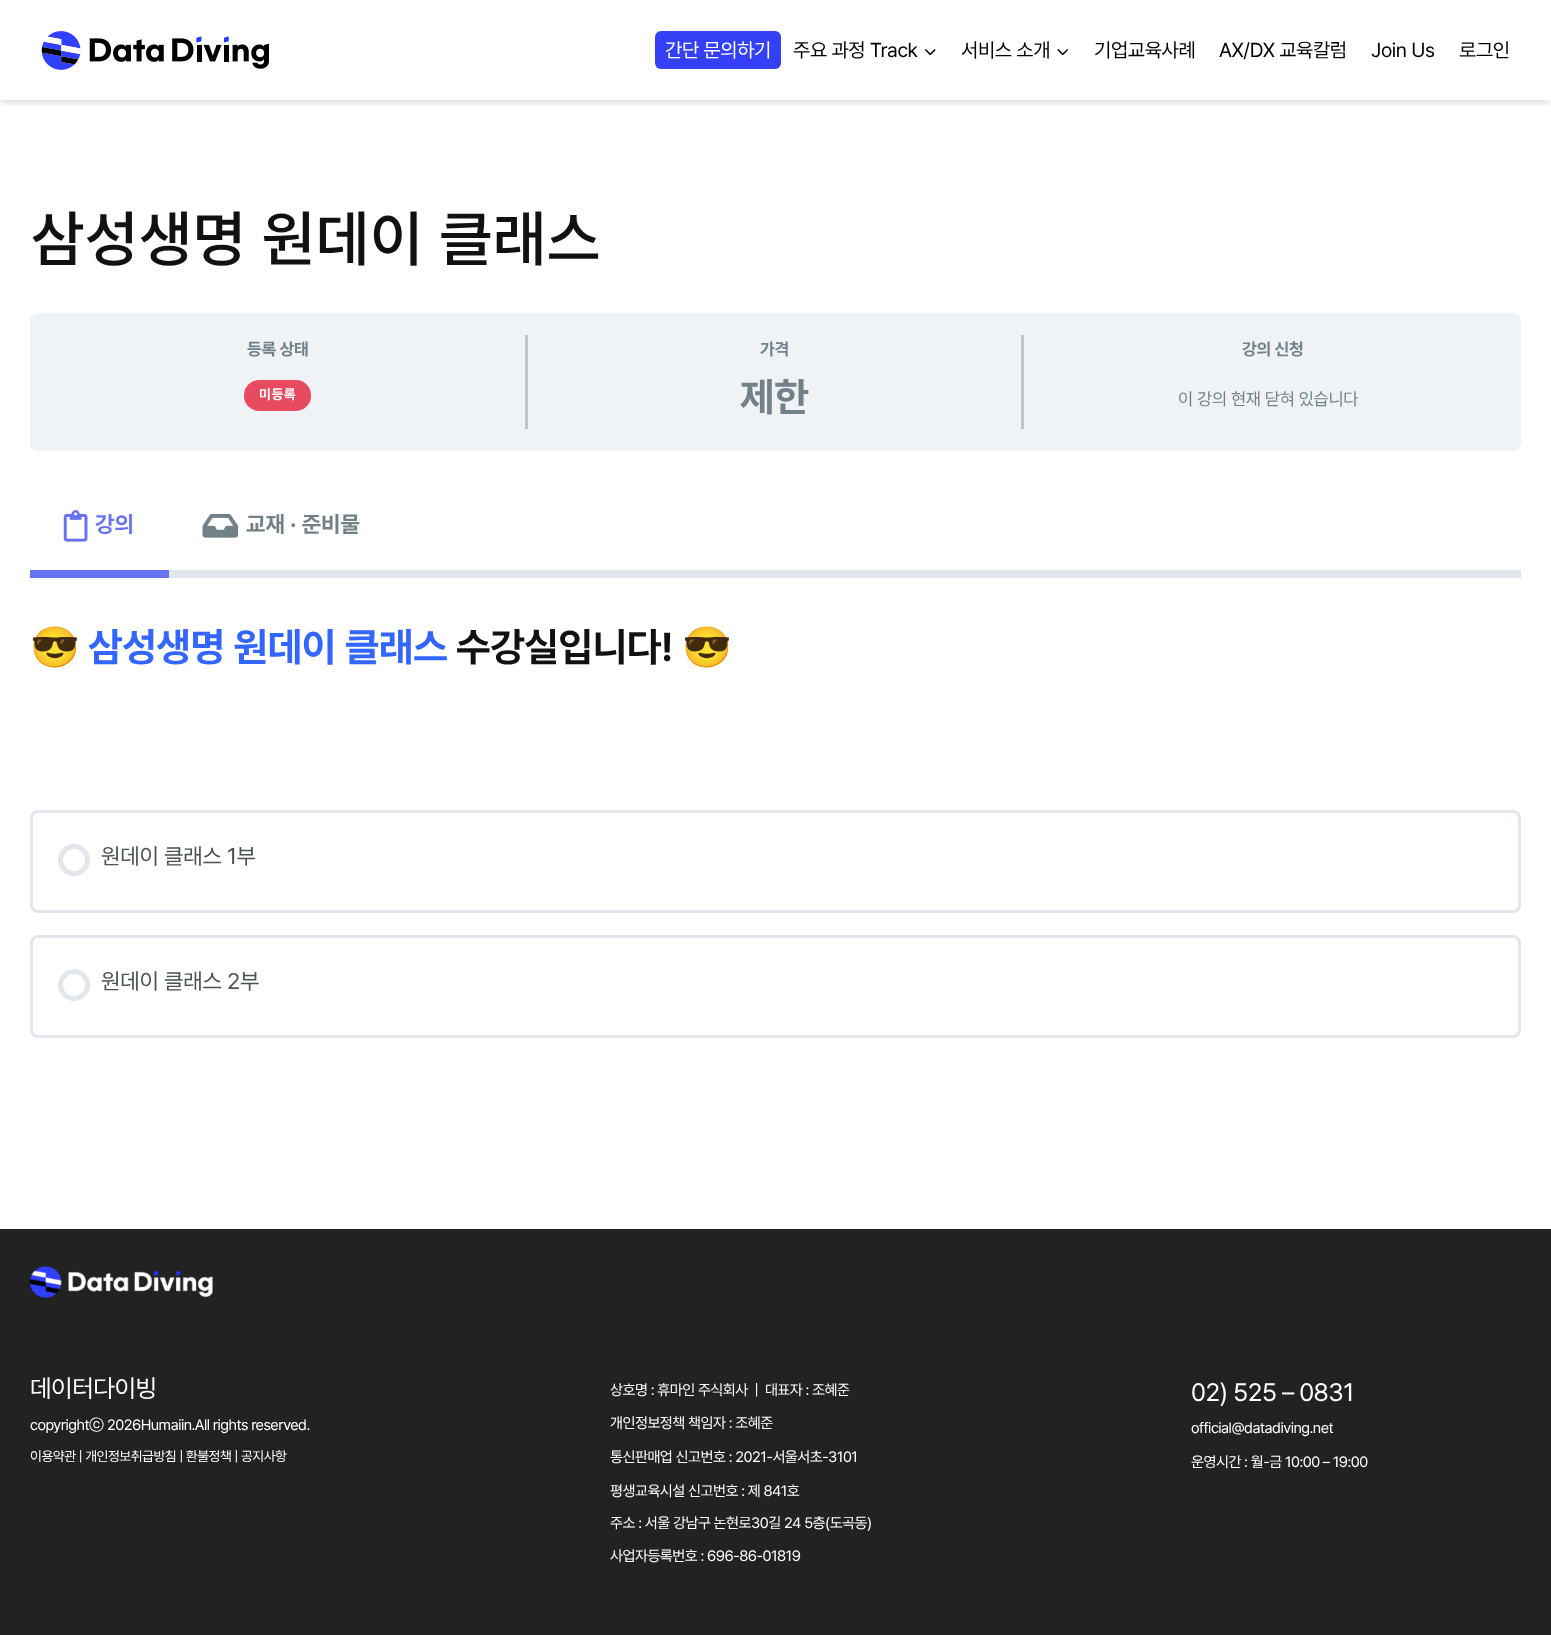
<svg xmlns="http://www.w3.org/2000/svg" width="1551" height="1635">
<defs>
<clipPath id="clip1"><rect x="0" y="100" width="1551" height="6"/></clipPath>
</defs>
<rect width="100%" height="100%" fill="#fff"/>
<g clip-path="url(#clip1)">
<rect x="1" y="6" width="1549" height="98" fill="#0000001a" filter="blur(2.5px)"/>
</g>
<image x="41" y="31" width="228" height="39" href="media/1.png"/>
<rect x="655" y="31" width="126" height="38" rx="6" fill="#3340f5"/>
<text x="665" y="57" style="font-family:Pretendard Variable;font-size:20px;letter-spacing:-0.4px;fill:#fff">간단 문의하기</text>
<text x="793" y="57" style="font-family:Pretendard Variable;font-size:20px;letter-spacing:-0.4px;fill:#000">주요 과정 Track</text>
<image x="925" y="49" width="11" height="7" href="media/2.png"/>
<text x="961" y="57" style="font-family:Pretendard Variable;font-size:20px;letter-spacing:-0.4px;fill:#000">서비스 소개</text>
<image x="1057" y="49" width="11" height="7" href="media/3.png"/>
<text x="1094" y="57" style="font-family:Pretendard Variable;font-size:20px;letter-spacing:-0.4px;fill:#000">기업교육사례</text>
<text x="1219" y="57" style="font-family:Pretendard Variable;font-size:20px;letter-spacing:-0.4px;fill:#000">AX/DX 교육칼럼</text>
<text x="1371" y="57" style="font-family:Pretendard Variable;font-size:20px;letter-spacing:-0.4px;fill:#000">Join Us</text>
<text x="1459" y="57" style="font-family:Pretendard Variable;font-size:20px;letter-spacing:-0.4px;fill:#000">로그인</text>
<text x="30" y="261" word-spacing="3" style="font-family:Noto Sans KR;font-size:60px;font-weight:500;letter-spacing:-1.25px;fill:#111">삼성생명 원데이 클래스</text>
<rect x="30" y="313" width="1491" height="138" rx="8" fill="#f0f3f6"/>
<rect x="525" y="335" width="3" height="94" fill="#bec5cb"/>
<text x="247" y="355" style="font-family:Pretendard Variable;font-size:17px;font-weight:bold;letter-spacing:-0.25px;fill:#728188">등록 상태</text>
<rect x="244" y="380" width="67" height="31" rx="15" fill="#e84a5f"/>
<text x="259" y="399" style="font-family:Pretendard Variable;font-size:13.75px;font-weight:bold;letter-spacing:0.5px;fill:#fff">미등록</text>
<rect x="1021" y="335" width="3" height="94" fill="#bec5cb"/>
<text x="760" y="355" style="font-family:Pretendard Variable;font-size:17px;font-weight:bold;letter-spacing:-0.25px;fill:#728188">가격</text>
<text x="740" y="411" style="font-family:Pretendard Variable;font-size:40px;font-weight:bold;letter-spacing:-0.25px;fill:#728188">제한</text>
<text x="1242" y="355" style="font-family:Pretendard Variable;font-size:17px;font-weight:bold;letter-spacing:-0.25px;fill:#728188">강의 신청</text>
<text x="1178" y="405" style="font-family:Pretendard Variable;font-size:17.5px;letter-spacing:-0.25px;fill:#728188">이 강의 현재 닫혀 있습니다</text>
<image x="63" y="510" width="25" height="32" href="media/4.png"/>
<text x="95" y="532" style="font-family:Pretendard Variable;font-size:22.5px;font-weight:bold;fill:#6772f7">강의</text>
<rect x="30" y="570" width="139" height="8" fill="#6772f7"/>
<image x="202" y="513" width="37" height="25" href="media/5.png"/>
<text x="246" y="532" style="font-family:Pretendard Variable;font-size:22.5px;font-weight:bold;fill:#728188">교재 · 준비물</text>
<rect x="169" y="570" width="1352" height="8" fill="#e2e7ed"/>
<text x="30" y="661" style="font-family:Noto Color Emoji;font-size:40px;font-weight:bold;letter-spacing:-0.4px;fill:#111">😎</text>
<text x="88" y="661" style="font-family:Pretendard Variable;font-size:40px;font-weight:bold;letter-spacing:-0.4px;fill:#36f">삼성생명 원데이 클래스</text>
<text x="456" y="661" style="font-family:Pretendard Variable;font-size:40px;font-weight:bold;letter-spacing:-0.4px;fill:#111">수강실입니다!</text>
<text x="682" y="661" style="font-family:Noto Color Emoji;font-size:40px;font-weight:bold;letter-spacing:-0.4px;fill:#111">😎</text>
<rect x="31.5" y="811.5" width="1488" height="100" rx="6.5" fill="none" stroke="#e2e7ed" stroke-width="3"/>
<circle cx="74" cy="860" r="13.5" fill="none" stroke="#e2e7ed" stroke-width="5"/>
<text x="101" y="864" style="font-family:Pretendard Variable;font-size:22.5px;letter-spacing:-0.25px;fill:#495255">원데이 클래스 1부</text>
<rect x="31.5" y="936.5" width="1488" height="100" rx="6.5" fill="none" stroke="#e2e7ed" stroke-width="3"/>
<circle cx="74" cy="985" r="13.5" fill="none" stroke="#e2e7ed" stroke-width="5"/>
<text x="101" y="989" style="font-family:Pretendard Variable;font-size:22.5px;letter-spacing:-0.25px;fill:#495255">원데이 클래스 2부</text>
<rect y="1229" width="1551" height="406" fill="#222"/>
<image x="30" y="1266" width="183" height="32" href="media/6.png"/>
<text x="30" y="1397" style="font-family:Pretendard Variable;font-size:25px;letter-spacing:-0.5px;fill:#fff">데이터다이빙</text>
<text x="30" y="1430" style="font-family:Pretendard Variable;font-size:15px;letter-spacing:-0.5px;fill:#fff">copyright</text>
<text x="89" y="1430" style="font-family:WenQuanYi Zen Hei;font-size:15px;font-weight:500;letter-spacing:-0.5px;fill:#fff">ⓒ</text>
<text x="107" y="1430" style="font-family:Pretendard Variable;font-size:15px;letter-spacing:-0.5px;fill:#fff">2026Humaiin.All rights reserved.</text>
<text x="30" y="1461" style="font-family:Pretendard Variable;font-size:13.75px;letter-spacing:-0.5px;fill:#fff">이용약관 | 개인정보취급방침 | 환불정책 | 공지사항</text>
<text x="610" y="1395" style="font-family:Pretendard Variable;font-size:15px;letter-spacing:-0.5px;fill:#fff" xml:space="preserve">상호명 : 휴마인 주식회사  |  대표자 : 조혜준</text>
<text x="610" y="1428" style="font-family:Pretendard Variable;font-size:15px;letter-spacing:-0.5px;fill:#fff">개인정보정책 책임자 : 조혜준</text>
<text x="610" y="1462" style="font-family:Pretendard Variable;font-size:15px;letter-spacing:-0.5px;fill:#fff">통신판매업 신고번호 : 2021-서울서초-3101</text>
<text x="610" y="1496" style="font-family:Pretendard Variable;font-size:15px;letter-spacing:-0.5px;fill:#fff">평생교육시설 신고번호 : 제 841호</text>
<text x="610" y="1528" style="font-family:Pretendard Variable;font-size:15px;letter-spacing:-0.5px;fill:#fff">주소 : 서울 강남구 논현로30길 24 5층(도곡동)</text>
<text x="610" y="1561" style="font-family:Pretendard Variable;font-size:15px;letter-spacing:-0.5px;fill:#fff">사업자등록번호 : 696-86-01819</text>
<text x="1191" y="1401" style="font-family:Pretendard Variable;font-size:25px;letter-spacing:-0.5px;fill:#fff">02) 525 – 0831</text>
<text x="1191" y="1433" style="font-family:Pretendard Variable;font-size:15px;letter-spacing:-0.5px;fill:#fff">official@datadiving.net</text>
<text x="1191" y="1467" style="font-family:Pretendard Variable;font-size:15px;letter-spacing:-0.5px;fill:#fff">운영시간 : 월-금 10:00 – 19:00</text>
</svg>
